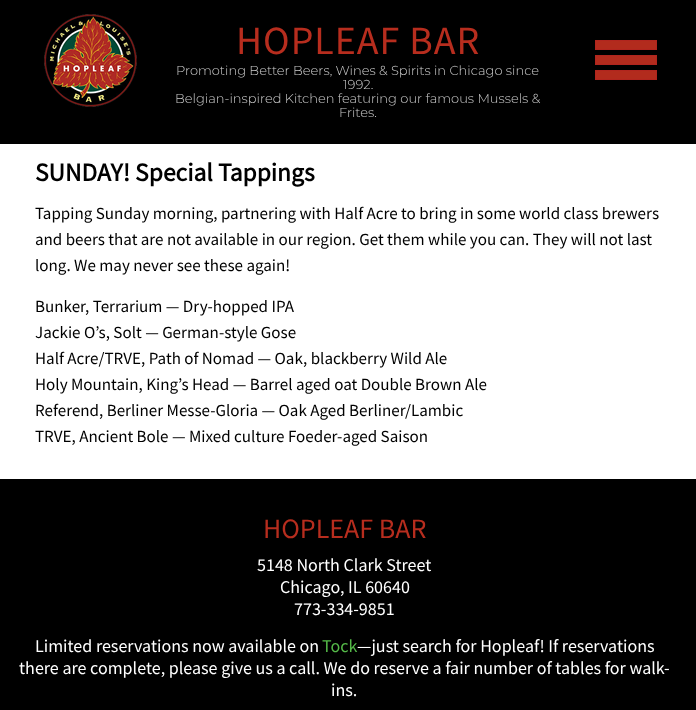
<svg xmlns="http://www.w3.org/2000/svg" width="696" height="710">
<rect width="100%" height="100%" fill="#000"/>
<image x="44" y="14" width="93" height="93" href="media/1.png"/>
<text x="236" y="54" style="font-family:Source Sans Pro;font-size:40px;letter-spacing:1px;fill:#b72d1e">HOPLEAF BAR</text>
<text x="176" y="75" style="font-family:Montserrat;font-size:13px;font-weight:300;fill:#ccc">Promoting Better Beers, Wines &amp; Spirits in Chicago since</text>
<text x="343" y="89" style="font-family:Montserrat;font-size:13px;font-weight:300;fill:#ccc">1992.</text>
<text x="175" y="103" style="font-family:Montserrat;font-size:13px;font-weight:300;fill:#ccc">Belgian-inspired Kitchen featuring our famous Mussels &amp;</text>
<text x="339" y="117" style="font-family:Montserrat;font-size:13px;font-weight:300;fill:#ccc">Frites.</text>
<image x="595" y="40" width="62" height="40" href="media/2.png"/>
<rect y="144" width="696" height="335" fill="#fff"/>
<text x="35" y="181" style="font-family:Source Sans Pro;font-size:25.5px;font-weight:bold;fill:#000">SUNDAY! Special Tappings</text>
<text x="35" y="219" style="font-family:Source Sans Pro;font-size:17px;fill:#000">Tapping Sunday morning, partnering with Half Acre to bring in some world class brewers</text>
<text x="35" y="245" style="font-family:Source Sans Pro;font-size:17px;fill:#000">and beers that are not available in our region. Get them while you can. They will not last</text>
<text x="35" y="271" style="font-family:Source Sans Pro;font-size:17px;fill:#000">long. We may never see these again!</text>
<text x="35" y="312" style="font-family:Source Sans Pro;font-size:17px;fill:#000">Bunker, Terrarium — Dry-hopped IPA</text>
<text x="35" y="338" style="font-family:Source Sans Pro;font-size:17px;fill:#000">Jackie O’s, Solt — German-style Gose</text>
<text x="35" y="364" style="font-family:Source Sans Pro;font-size:17px;fill:#000">Half Acre/TRVE, Path of Nomad — Oak, blackberry Wild Ale</text>
<text x="35" y="390" style="font-family:Source Sans Pro;font-size:17px;fill:#000">Holy Mountain, King’s Head — Barrel aged oat Double Brown Ale</text>
<text x="35" y="416" style="font-family:Source Sans Pro;font-size:17px;fill:#000">Referend, Berliner Messe-Gloria — Oak Aged Berliner/Lambic</text>
<text x="35" y="442" style="font-family:Source Sans Pro;font-size:17px;fill:#000">TRVE, Ancient Bole — Mixed culture Foeder-aged Saison</text>
<text x="263" y="538" style="font-family:Source Sans Pro;font-size:28px;fill:#b72d1e">HOPLEAF BAR</text>
<text x="257" y="571" style="font-family:Source Sans Pro;font-size:18px;fill:#fff">5148 North Clark Street</text>
<text x="280" y="593" style="font-family:Source Sans Pro;font-size:18px;fill:#fff">Chicago, IL 60640</text>
<text x="294" y="615" style="font-family:Source Sans Pro;font-size:18px;fill:#fff">773-334-9851</text>
<text x="35" y="652" style="font-family:Source Sans Pro;font-size:18px;fill:#fff">Limited reservations now available on</text>
<text x="322" y="652" style="font-family:Source Sans Pro;font-size:18px;fill:#54b948">Tock</text>
<text x="357" y="652" style="font-family:Source Sans Pro;font-size:18px;fill:#fff">—just search for Hopleaf! If reservations</text>
<text x="19" y="674" style="font-family:Source Sans Pro;font-size:18px;fill:#fff">there are complete, please give us a call. We do reserve a fair number of tables for walk-</text>
<text x="331" y="696" style="font-family:Source Sans Pro;font-size:18px;fill:#fff">ins.</text>
</svg>
